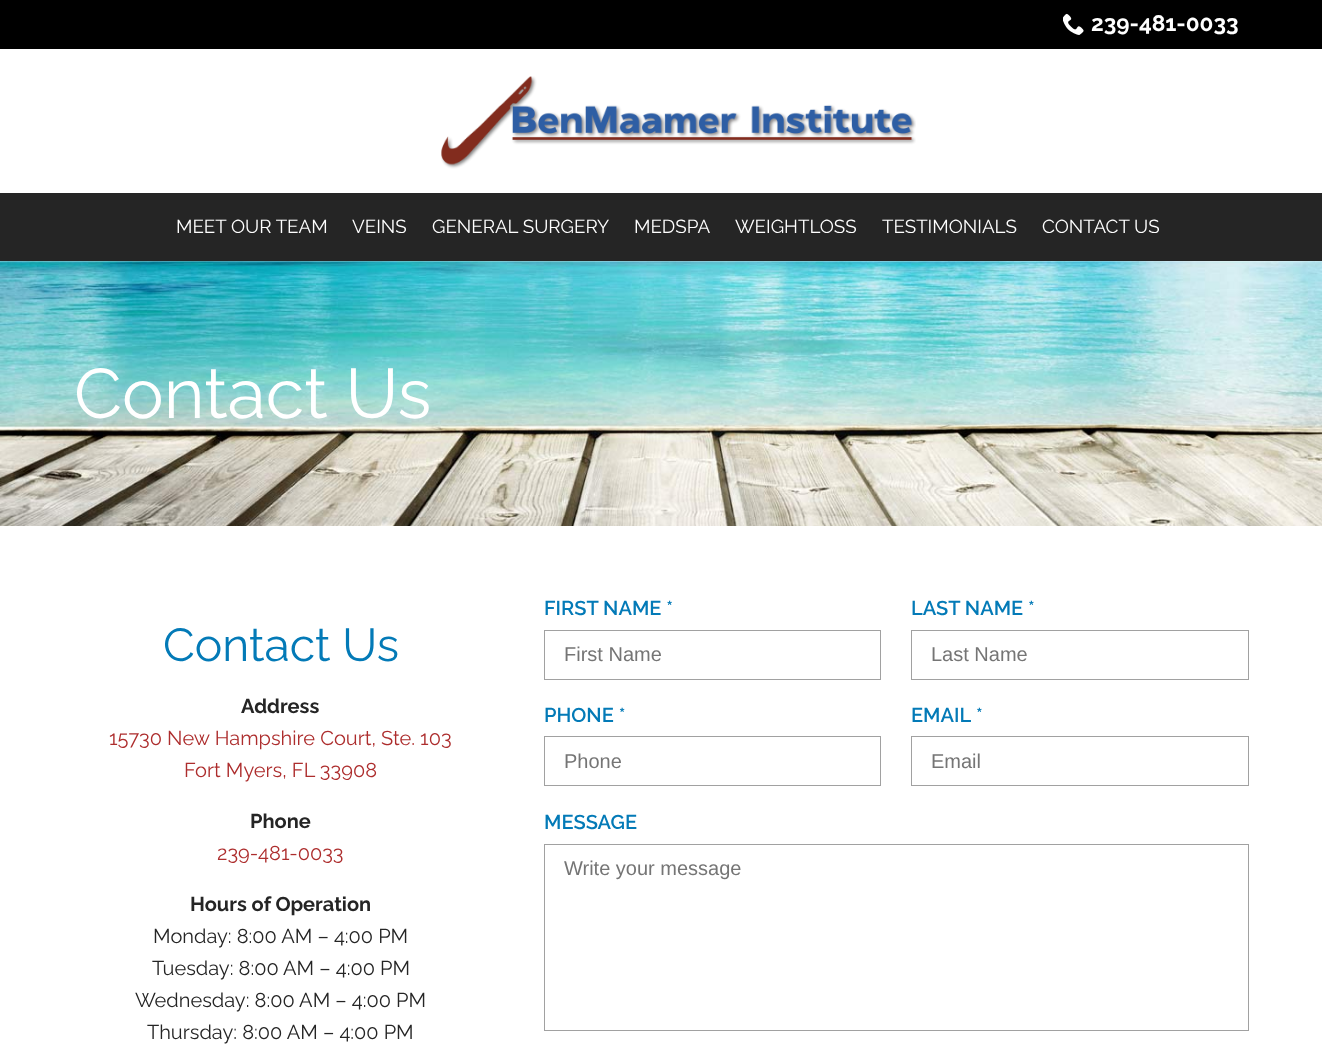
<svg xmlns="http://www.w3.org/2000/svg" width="1322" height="1061">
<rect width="100%" height="100%" fill="#fff"/>
<rect width="1322" height="49" fill="#000"/>
<image x="1063" y="13" width="21" height="22" href="media/1.png"/>
<text x="1091" y="31" style="font-family:Raleway;font-size:22.5px;font-weight:bold;fill:#fff">239-481-0033</text>
<image x="441" y="76" width="475" height="93" href="media/2.png"/>
<rect y="193" width="1322" height="68" fill="#252525"/>
<text x="176" y="233" style="font-family:Raleway;font-size:18.75px;fill:#fff">MEET OUR TEAM</text>
<text x="352" y="233" style="font-family:Raleway;font-size:18.75px;fill:#fff">VEINS</text>
<text x="432" y="233" style="font-family:Raleway;font-size:18.75px;fill:#fff">GENERAL SURGERY</text>
<text x="634" y="233" style="font-family:Raleway;font-size:18.75px;fill:#fff">MEDSPA</text>
<text x="735" y="233" style="font-family:Raleway;font-size:18.75px;fill:#fff">WEIGHTLOSS</text>
<text x="882" y="233" style="font-family:Raleway;font-size:18.75px;fill:#fff">TESTIMONIALS</text>
<text x="1042" y="233" style="font-family:Raleway;font-size:18.75px;fill:#fff">CONTACT US</text>
<image x="0" y="261" width="1322" height="265" href="media/3.png"/>
<text x="74" y="418" style="font-family:Raleway;font-size:70px;fill:#fff">Contact Us</text>
<text x="163" y="661" style="font-family:Raleway;font-size:46.25px;fill:#037ab7">Contact Us</text>
<text x="241" y="713" style="font-family:Raleway;font-size:20px;font-weight:bold;fill:#252525">Address</text>
<text x="109" y="745" style="font-family:Raleway;font-size:20px;fill:#ad2d2d">15730 New Hampshire Court, Ste. 103</text>
<text x="184" y="777" style="font-family:Raleway;font-size:20px;fill:#ad2d2d">Fort Myers, FL 33908</text>
<text x="250" y="828" style="font-family:Raleway;font-size:20px;font-weight:bold;fill:#252525">Phone</text>
<text x="217" y="860" style="font-family:Raleway;font-size:20px;fill:#ad2d2d">239-481-0033</text>
<text x="190" y="911" style="font-family:Raleway;font-size:20px;font-weight:bold;fill:#252525">Hours of Operation</text>
<text x="153" y="943" style="font-family:Raleway;font-size:20px;fill:#252525">Monday: 8:00 AM – 4:00 PM</text>
<text x="152" y="975" style="font-family:Raleway;font-size:20px;fill:#252525">Tuesday: 8:00 AM – 4:00 PM</text>
<text x="135" y="1007" style="font-family:Raleway;font-size:20px;fill:#252525">Wednesday: 8:00 AM – 4:00 PM</text>
<text x="147" y="1039" style="font-family:Raleway;font-size:20px;fill:#252525">Thursday: 8:00 AM – 4:00 PM</text>
<text x="544" y="615" style="font-family:Raleway;font-size:20px;font-weight:600;fill:#037ab7">FIRST NAME *</text>
<rect x="544.5" y="630.5" width="336" height="49" fill="none" stroke="#a1a1a1"/>
<text x="564" y="661" style="font-family:Liberation Sans;font-size:20px;fill:#757575">First Name</text>
<text x="911" y="615" style="font-family:Raleway;font-size:20px;font-weight:600;fill:#037ab7">LAST NAME *</text>
<rect x="911.5" y="630.5" width="337" height="49" fill="none" stroke="#a1a1a1"/>
<text x="931" y="661" style="font-family:Liberation Sans;font-size:20px;fill:#757575">Last Name</text>
<text x="544" y="722" style="font-family:Raleway;font-size:20px;font-weight:600;fill:#037ab7">PHONE *</text>
<rect x="544.5" y="736.5" width="336" height="49" fill="none" stroke="#a1a1a1"/>
<text x="564" y="768" style="font-family:Liberation Sans;font-size:20px;fill:#757575">Phone</text>
<text x="911" y="722" style="font-family:Raleway;font-size:20px;font-weight:600;fill:#037ab7">EMAIL</text>
<text x="976" y="722" style="font-family:Raleway;font-size:20px;font-weight:600;fill:#037ab7">*</text>
<rect x="911.5" y="736.5" width="337" height="49" fill="none" stroke="#a1a1a1"/>
<text x="931" y="768" style="font-family:Liberation Sans;font-size:20px;fill:#757575">Email</text>
<text x="544" y="829" style="font-family:Raleway;font-size:20px;font-weight:600;fill:#037ab7">MESSAGE</text>
<rect x="544.5" y="844.5" width="704" height="186" fill="none" stroke="#a1a1a1"/>
<text x="564" y="875" style="font-family:Liberation Sans;font-size:20px;fill:#757575">Write your message</text>
</svg>
